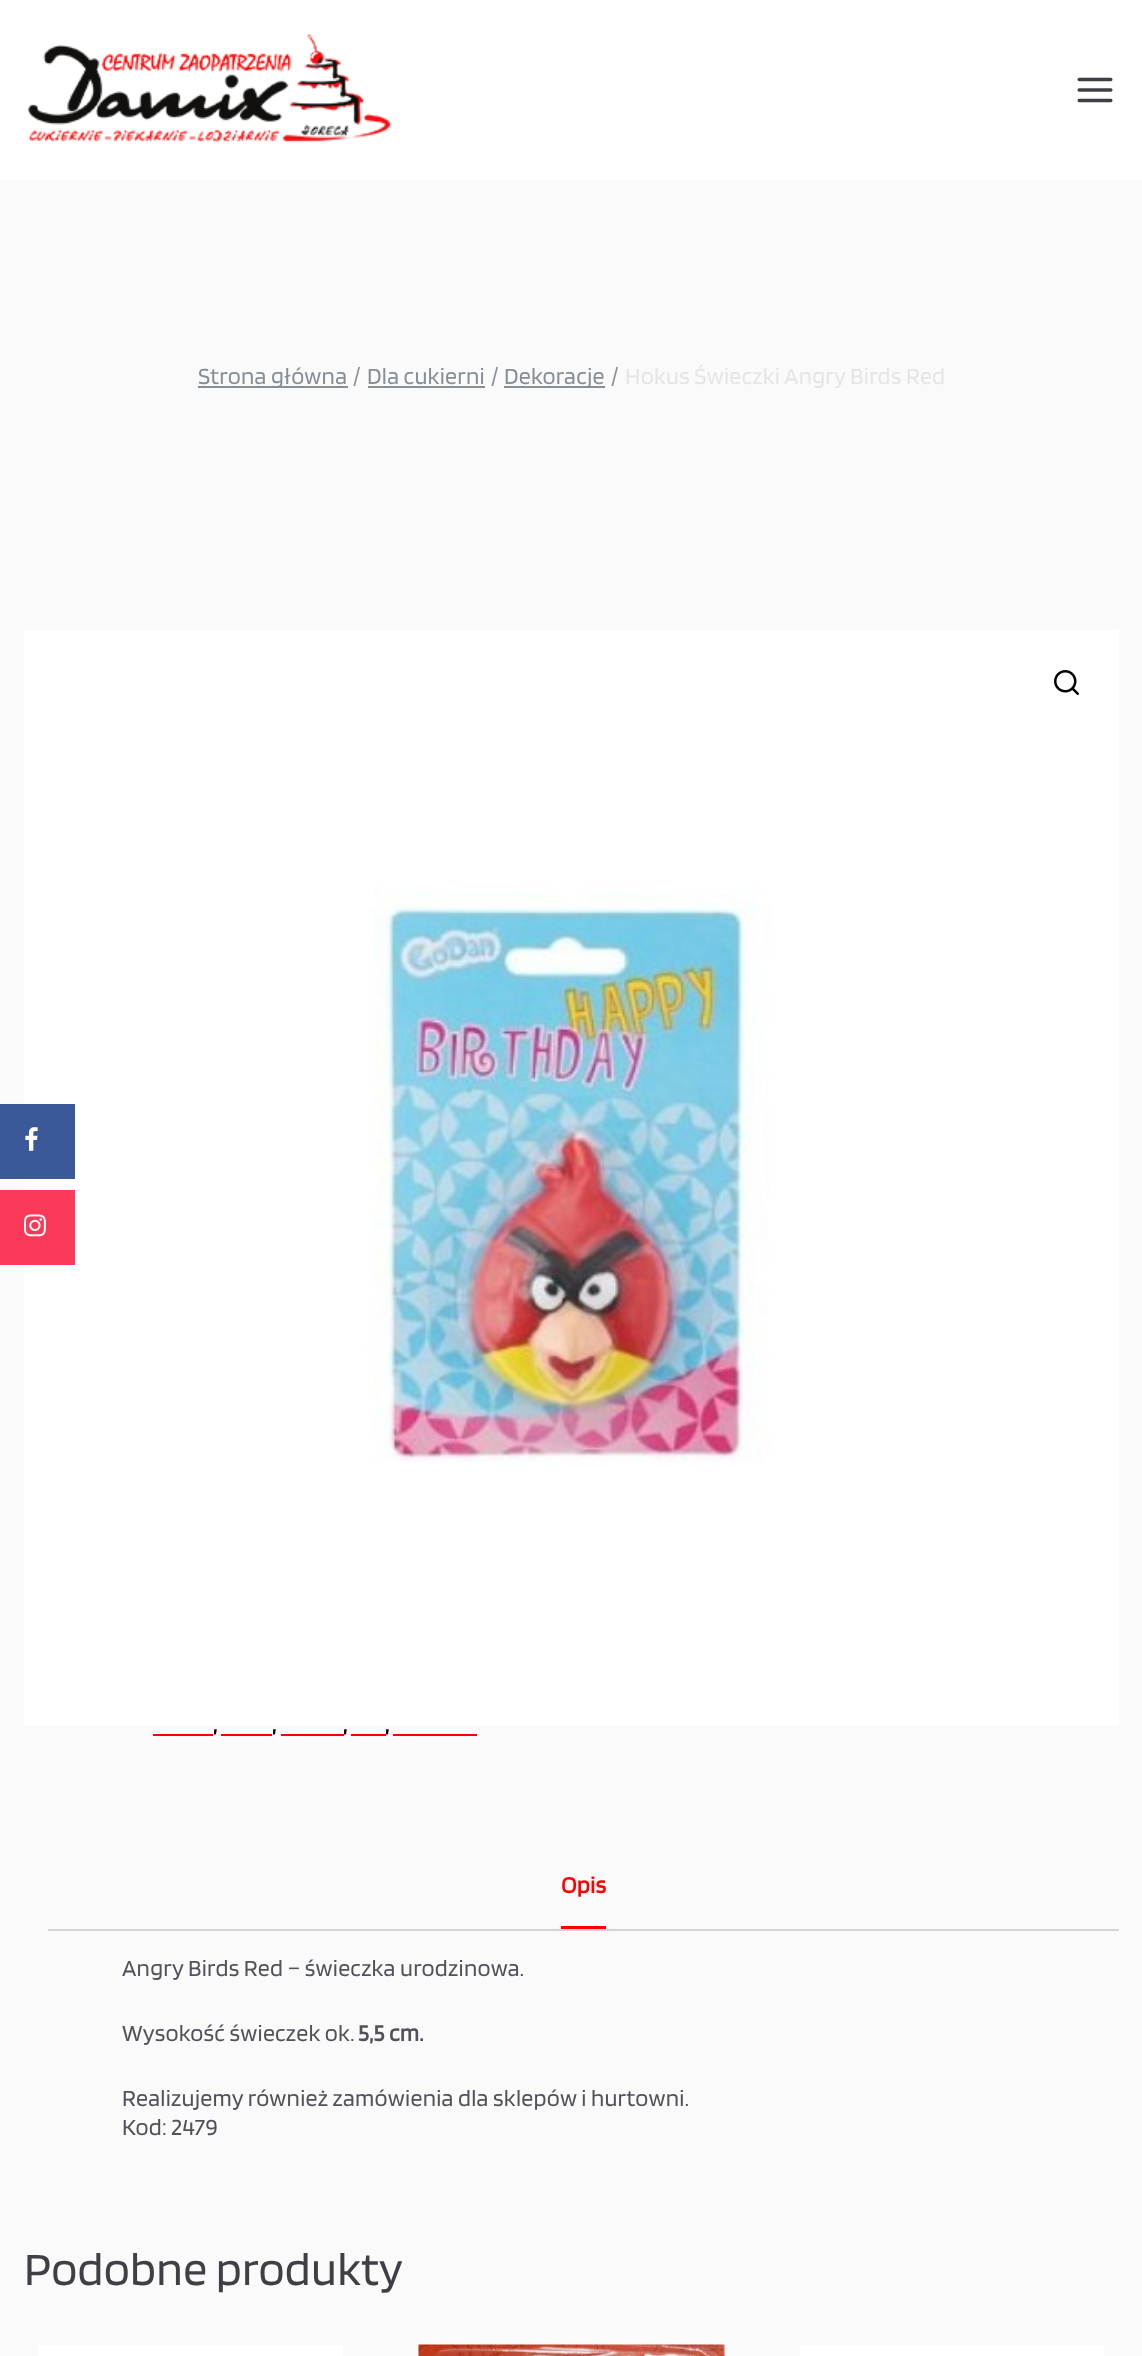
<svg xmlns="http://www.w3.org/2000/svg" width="1142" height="2356">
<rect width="100%" height="100%" fill="#fafafa"/>
<rect width="1142" height="180" fill="#fff"/>
<image x="28" y="34" width="363" height="108" href="media/1.png"/>
<image x="1077" y="77" width="36" height="26" href="media/2.png"/>
<rect x="198" y="386" width="150" height="2" fill="#868e96"/>
<text x="198" y="384" style="font-family:Blinker;font-size:24px;letter-spacing:0.25px;fill:#868e96">Strona główna</text>
<text x="353" y="384" style="font-family:Blinker;font-size:24px;letter-spacing:0.25px;fill:#868e96">/</text>
<text x="367" y="384" style="font-family:Blinker;font-size:24px;letter-spacing:0.25px;fill:#868e96">Dla cukierni</text>
<rect x="368" y="386" width="117" height="2" fill="#868e96"/>
<text x="491" y="384" style="font-family:Blinker;font-size:24px;letter-spacing:0.25px;fill:#868e96">/</text>
<rect x="504" y="386" width="101" height="2" fill="#868e96"/>
<text x="504" y="384" style="font-family:Blinker;font-size:24px;letter-spacing:0.25px;fill:#868e96">Dekoracje</text>
<text x="611" y="384" style="font-family:Blinker;font-size:24px;letter-spacing:0.25px;fill:#868e96">/</text>
<text x="625" y="384" style="font-family:Blinker;font-size:24px;letter-spacing:0.25px;fill:#e5e5e5">Hokus Świeczki Angry Birds Red</text>
<image x="24" y="630" width="1095" height="1095" href="media/3.png"/>
<image x="1054" y="670" width="25" height="25" href="media/4.png"/>
<rect x="153" y="1734" width="60" height="2" fill="#f00"/>
<text x="213" y="1732" style="font-family:Blinker;font-size:24px;font-weight:bold;letter-spacing:0.25px;fill:#020202">,</text>
<rect x="221" y="1734" width="51" height="2" fill="#f00"/>
<text x="272" y="1732" style="font-family:Blinker;font-size:24px;font-weight:bold;letter-spacing:0.25px;fill:#020202">,</text>
<rect x="281" y="1734" width="63" height="2" fill="#f00"/>
<text x="343" y="1732" style="font-family:Blinker;font-size:24px;font-weight:bold;letter-spacing:0.25px;fill:#020202">,</text>
<rect x="351" y="1734" width="35" height="2" fill="#f00"/>
<text x="385" y="1732" style="font-family:Blinker;font-size:24px;font-weight:bold;letter-spacing:0.25px;fill:#020202">,</text>
<rect x="393" y="1734" width="84" height="2" fill="#f00"/>
<rect x="48" y="1929" width="1071" height="2" fill="#d4d4d8"/>
<rect x="561" y="1926" width="45" height="3" fill="#f00"/>
<text x="561" y="1893" style="font-family:Blinker;font-size:24px;font-weight:bold;letter-spacing:0.25px;fill:#f00">Opis</text>
<text x="122" y="1976" style="font-family:Blinker;font-size:24px;letter-spacing:0.25px;fill:#52525b">Angry Birds Red – świeczka urodzinowa.</text>
<text x="122" y="2041" style="font-family:Blinker;font-size:24px;letter-spacing:0.25px;fill:#52525b">Wysokość świeczek ok.</text>
<text x="358" y="2041" style="font-family:Blinker;font-size:24px;font-weight:bold;letter-spacing:0.25px;fill:#52525b">5,5 cm.</text>
<text x="122" y="2106" style="font-family:Blinker;font-size:24px;letter-spacing:0.25px;fill:#52525b">Realizujemy również zamówienia dla sklepów i hurtowni.</text>
<text x="122" y="2135" style="font-family:Blinker;font-size:24px;letter-spacing:0.25px;fill:#52525b">Kod: 2479</text>
<text x="24" y="2285" style="font-family:Blinker;font-size:48px;letter-spacing:0.25px;fill:#3f3f46">Podobne produkty</text>
<rect x="39" y="2345" width="304" height="11" fill="#fff"/>
<image x="418" y="2344" width="307" height="12" href="media/5.png"/>
<rect x="800" y="2345" width="304" height="11" fill="#fff"/>
<rect y="1104" width="75" height="75" fill="#3b5998"/>
<image x="25" y="1127" width="13" height="24" href="media/6.png"/>
<rect y="1190" width="75" height="75" fill="#fb3958"/>
<image x="24" y="1214" width="22" height="23" href="media/7.png"/>
</svg>
